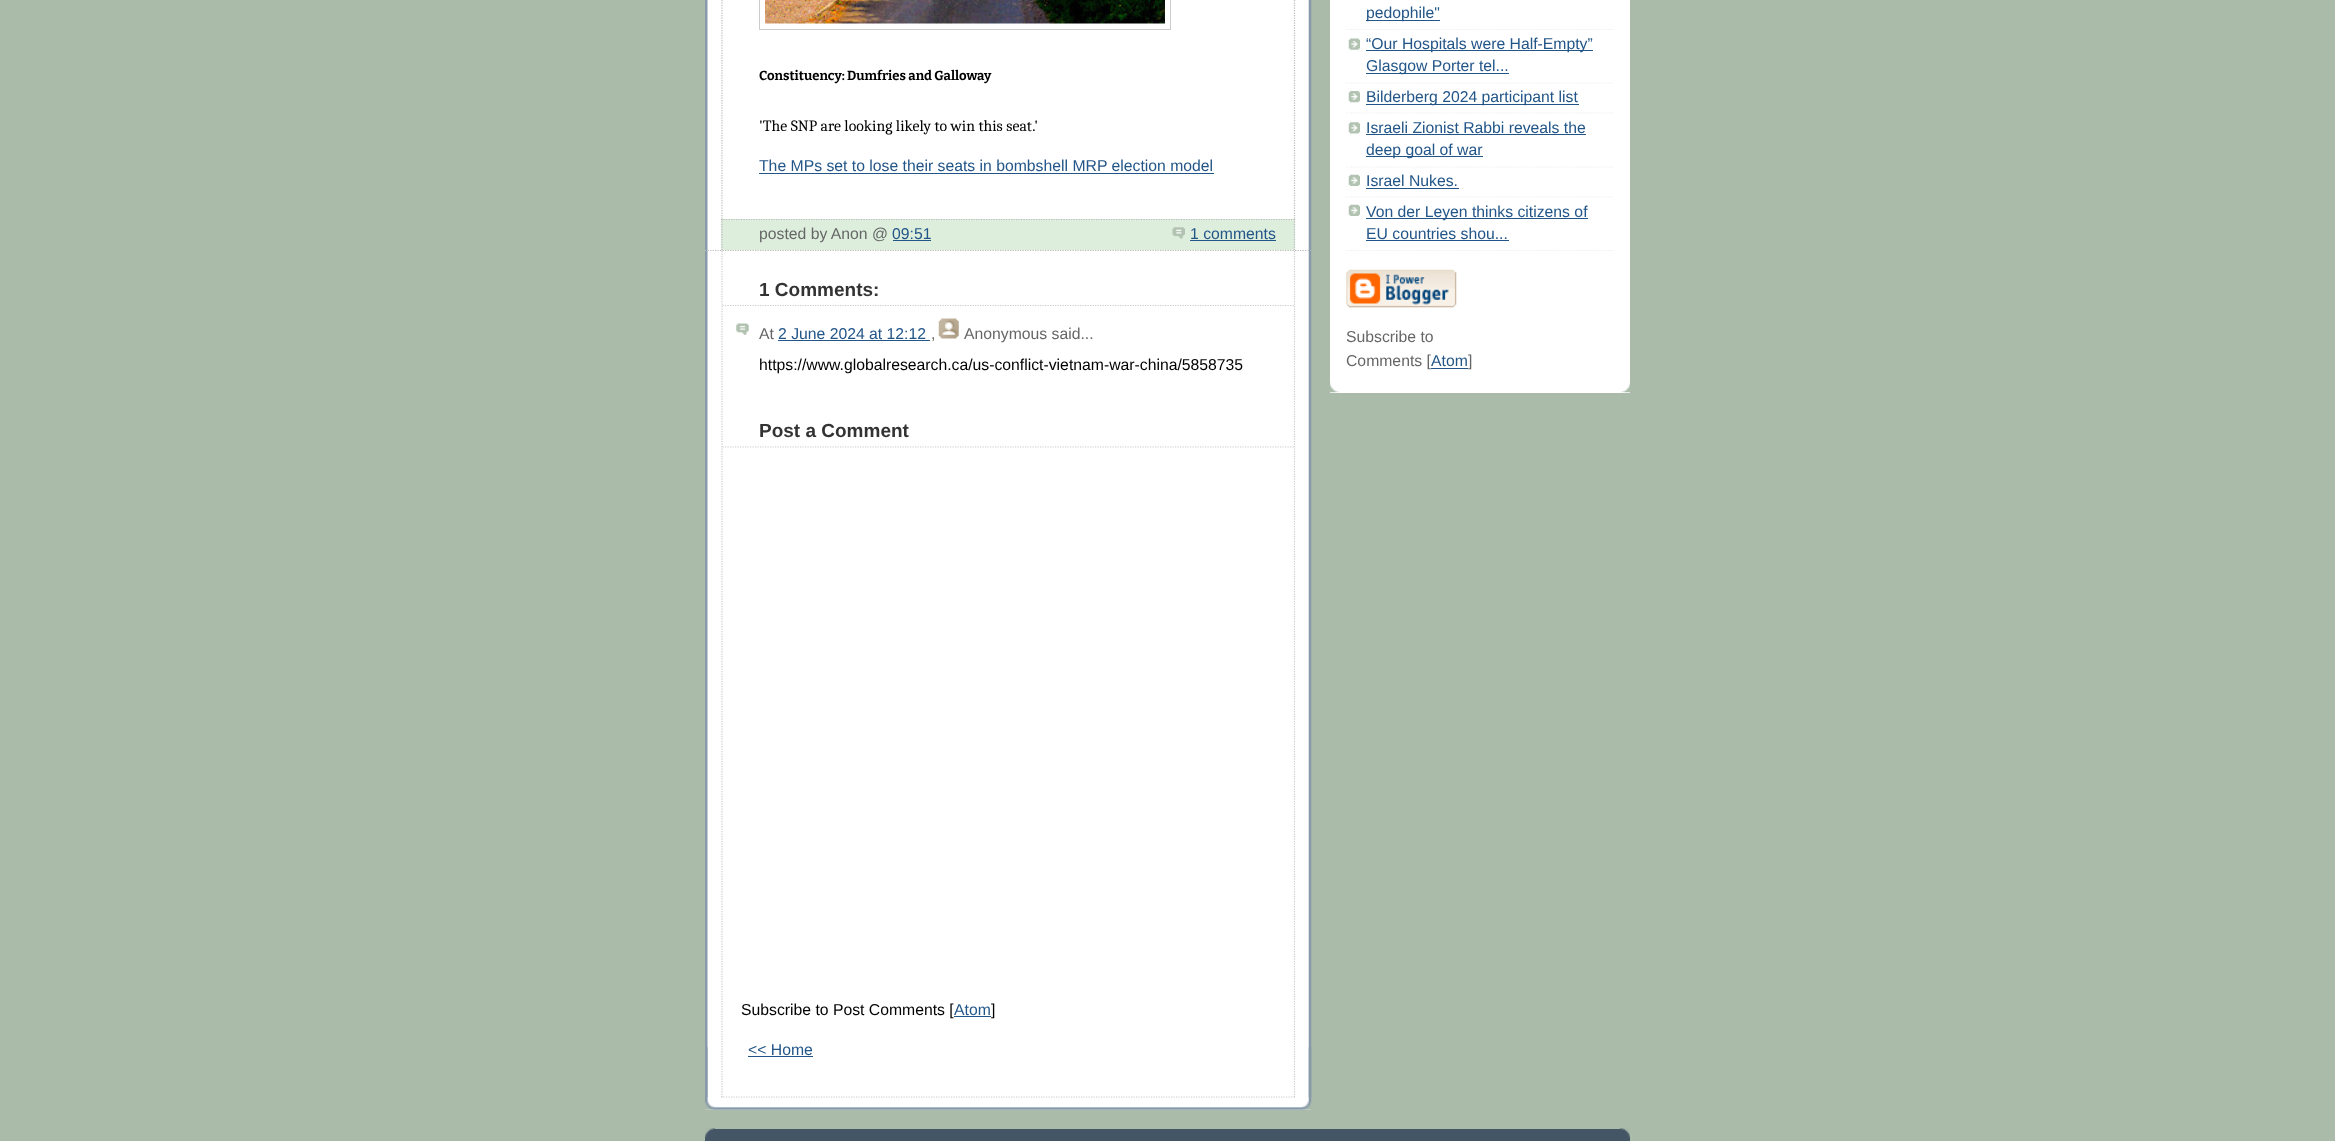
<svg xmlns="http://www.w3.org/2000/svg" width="2335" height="1141">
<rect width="100%" height="100%" fill="#aba"/>
<rect x="705" width="606" height="1110" fill="#fff"/>
<image x="705" y="1047" width="607" height="63" href="media/1.png"/>
<image x="705" y="0" width="607" height="1098" href="media/2.png"/>
<path d="M705 250.5h606" fill="none" stroke="#bbb" stroke-width="1.2" stroke-dasharray="1.25 1.25"/>
<path d="M1294.5-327.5v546.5" fill="none" stroke="#bbb" stroke-width="1.2" stroke-dasharray="1.25 1.25"/>
<path d="M722-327.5v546.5" fill="none" stroke="#bbb" stroke-width="1.2" stroke-dasharray="1.25 1.25"/>
<rect x="759.5" y="-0.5" width="411" height="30" fill="none" stroke="#ccc"/>
<image x="765" y="0" width="400" height="24" href="media/3.png"/>
<text x="759" y="80" style="font-family:Bitter;font-size:13.1px;font-weight:bold;fill:#000">Constituency: Dumfries and Galloway</text>
<text x="759" y="131" style="font-family:Caladea;font-size:15.75px;fill:#000">'The SNP are looking likely to win this seat.'</text>
<text x="759" y="171" style="font-family:Liberation Sans;font-size:15.75px;fill:#258">The MPs set to lose their seats in bombshell MRP election model</text>
<rect x="759" y="173" width="455" height="1" fill="#258"/>
<rect x="721" y="219" width="574" height="31" fill="#ded"/>
<path d="M721 219.5h574" fill="none" stroke="#bbb" stroke-width="1.2" stroke-dasharray="1.25 1.25"/>
<path d="M1294.5 219v31" fill="none" stroke="#bbb" stroke-width="1.2" stroke-dasharray="1.25 1.25"/>
<path d="M722 219v31" fill="none" stroke="#bbb" stroke-width="1.2" stroke-dasharray="1.25 1.25"/>
<text x="759" y="239" style="font-family:Liberation Sans;font-size:15.75px;fill:#666">posted by Anon @</text>
<text x="892" y="239" style="font-family:Liberation Sans;font-size:15.75px;fill:#258">09:51</text>
<rect x="893" y="240" width="38" height="1" fill="#258"/>
<image x="1172" y="227" width="13" height="12" href="media/4.png"/>
<text x="1190" y="239" style="font-family:Liberation Sans;font-size:15.75px;fill:#258">1 comments</text>
<rect x="1190" y="240" width="86" height="1" fill="#258"/>
<path d="M1294.5 251v846.5" fill="none" stroke="#ccc" stroke-width="1.2" stroke-dasharray="1.25 1.25"/>
<path d="M721 1097h574" fill="none" stroke="#ccc" stroke-width="1.2" stroke-dasharray="1.25 1.25"/>
<path d="M722 251v846.5" fill="none" stroke="#ccc" stroke-width="1.2" stroke-dasharray="1.25 1.25"/>
<path d="M722.5 305.5h571.5" fill="none" stroke="#ccc" stroke-width="1.2" stroke-dasharray="1.25 1.25"/>
<text x="759" y="296" style="font-family:Liberation Sans;font-size:19px;font-weight:bold;fill:#333">1 Comments:</text>
<image x="736" y="323" width="13" height="12" href="media/5.png"/>
<text x="759" y="339" style="font-family:Liberation Sans;font-size:15.75px;fill:#666">At</text>
<text x="778" y="339" style="font-family:Liberation Sans;font-size:15.75px;fill:#258">2 June 2024 at 12:12</text>
<rect x="778" y="340" width="152" height="1" fill="#258"/>
<text x="931" y="339" style="font-family:Liberation Sans;font-size:15.75px;fill:#666">,</text>
<image x="938" y="318" width="21" height="21" href="media/6.png"/>
<text x="964" y="339" style="font-family:Liberation Sans;font-size:15.75px;fill:#666">Anonymous said...</text>
<text x="759" y="370" style="font-family:Liberation Sans;font-size:15.75px;fill:#000">https://www.globalresearch.ca/us-conflict-vietnam-war-china/5858735</text>
<path d="M722.5 447h571.5" fill="none" stroke="#ccc" stroke-width="1.2" stroke-dasharray="1.25 1.25"/>
<text x="759" y="437" style="font-family:Liberation Sans;font-size:19px;font-weight:bold;fill:#333">Post a Comment</text>
<text x="741" y="1015" style="font-family:Liberation Sans;font-size:15.75px;fill:#000">Subscribe to Post Comments [</text>
<text x="954" y="1015" style="font-family:Liberation Sans;font-size:15.75px;fill:#258">Atom</text>
<rect x="954" y="1016" width="37" height="1" fill="#258"/>
<text x="991" y="1015" style="font-family:Liberation Sans;font-size:15.75px;fill:#000">]</text>
<text x="748" y="1055" style="font-family:Liberation Sans;font-size:15.75px;fill:#258">&lt;&lt; Home</text>
<rect x="748" y="1056" width="65" height="1" fill="#258"/>
<rect x="1330" width="300" height="393" fill="#fff"/>
<image x="1330" y="382" width="300" height="11" href="media/7.png"/>
<path d="M1346 29.5h268" fill="none" stroke="#eee" stroke-width="1.2" stroke-dasharray="1.25 1.25"/>
<rect x="1366" y="20" width="74" height="1" fill="#258"/>
<text x="1366" y="18" style="font-family:Liberation Sans;font-size:15.75px;fill:#258">pedophile"</text>
<image x="1348" y="38" width="12" height="12" href="media/8.png"/>
<path d="M1346 83h268" fill="none" stroke="#eee" stroke-width="1.2" stroke-dasharray="1.25 1.25"/>
<rect x="1366" y="50" width="227" height="1" fill="#258"/>
<text x="1366" y="49" style="font-family:Liberation Sans;font-size:15.75px;fill:#258">“Our Hospitals were Half-Empty”</text>
<rect x="1366" y="73" width="143" height="1" fill="#258"/>
<text x="1366" y="71" style="font-family:Liberation Sans;font-size:15.75px;fill:#258">Glasgow Porter tel...</text>
<image x="1348" y="91" width="12" height="12" href="media/9.png"/>
<path d="M1346 113h268" fill="none" stroke="#eee" stroke-width="1.2" stroke-dasharray="1.25 1.25"/>
<rect x="1366" y="104" width="213" height="1" fill="#258"/>
<text x="1366" y="102" style="font-family:Liberation Sans;font-size:15.75px;fill:#258">Bilderberg 2024 participant list</text>
<image x="1348" y="122" width="12" height="12" href="media/10.png"/>
<path d="M1346 167h268" fill="none" stroke="#eee" stroke-width="1.2" stroke-dasharray="1.25 1.25"/>
<text x="1366" y="133" style="font-family:Liberation Sans;font-size:15.75px;fill:#258">Israeli Zionist Rabbi reveals the</text>
<rect x="1366" y="134" width="220" height="1" fill="#258"/>
<rect x="1366" y="156" width="117" height="1" fill="#258"/>
<text x="1366" y="155" style="font-family:Liberation Sans;font-size:15.75px;fill:#258">deep goal of war</text>
<image x="1348" y="174" width="12" height="12" href="media/11.png"/>
<path d="M1346 197h268" fill="none" stroke="#eee" stroke-width="1.2" stroke-dasharray="1.25 1.25"/>
<text x="1366" y="186" style="font-family:Liberation Sans;font-size:15.75px;fill:#258">Israel Nukes.</text>
<rect x="1366" y="188" width="93" height="1" fill="#258"/>
<image x="1348" y="204" width="12" height="12" href="media/11.png"/>
<path d="M1346 250.5h268" fill="none" stroke="#eee" stroke-width="1.2" stroke-dasharray="1.25 1.25"/>
<rect x="1366" y="218" width="222" height="1" fill="#258"/>
<text x="1366" y="217" style="font-family:Liberation Sans;font-size:15.75px;fill:#258">Von der Leyen thinks citizens of</text>
<text x="1366" y="239" style="font-family:Liberation Sans;font-size:15.75px;fill:#258">EU countries shou...</text>
<rect x="1366" y="240" width="143" height="1" fill="#258"/>
<image x="1346" y="269" width="111" height="39" href="media/12.png"/>
<text x="1346" y="342" style="font-family:Liberation Sans;font-size:15.75px;fill:#666">Subscribe to</text>
<text x="1346" y="366" style="font-family:Liberation Sans;font-size:15.75px;fill:#666">Comments [</text>
<text x="1431" y="366" style="font-family:Liberation Sans;font-size:15.75px;fill:#258">Atom</text>
<rect x="1431" y="368" width="37" height="1" fill="#258"/>
<text x="1468" y="366" style="font-family:Liberation Sans;font-size:15.75px;fill:#666">]</text>
<rect x="705" y="1129" width="925" height="12" fill="#456"/>
<image x="705" y="1128" width="925" height="10" href="media/13.png"/>
</svg>
